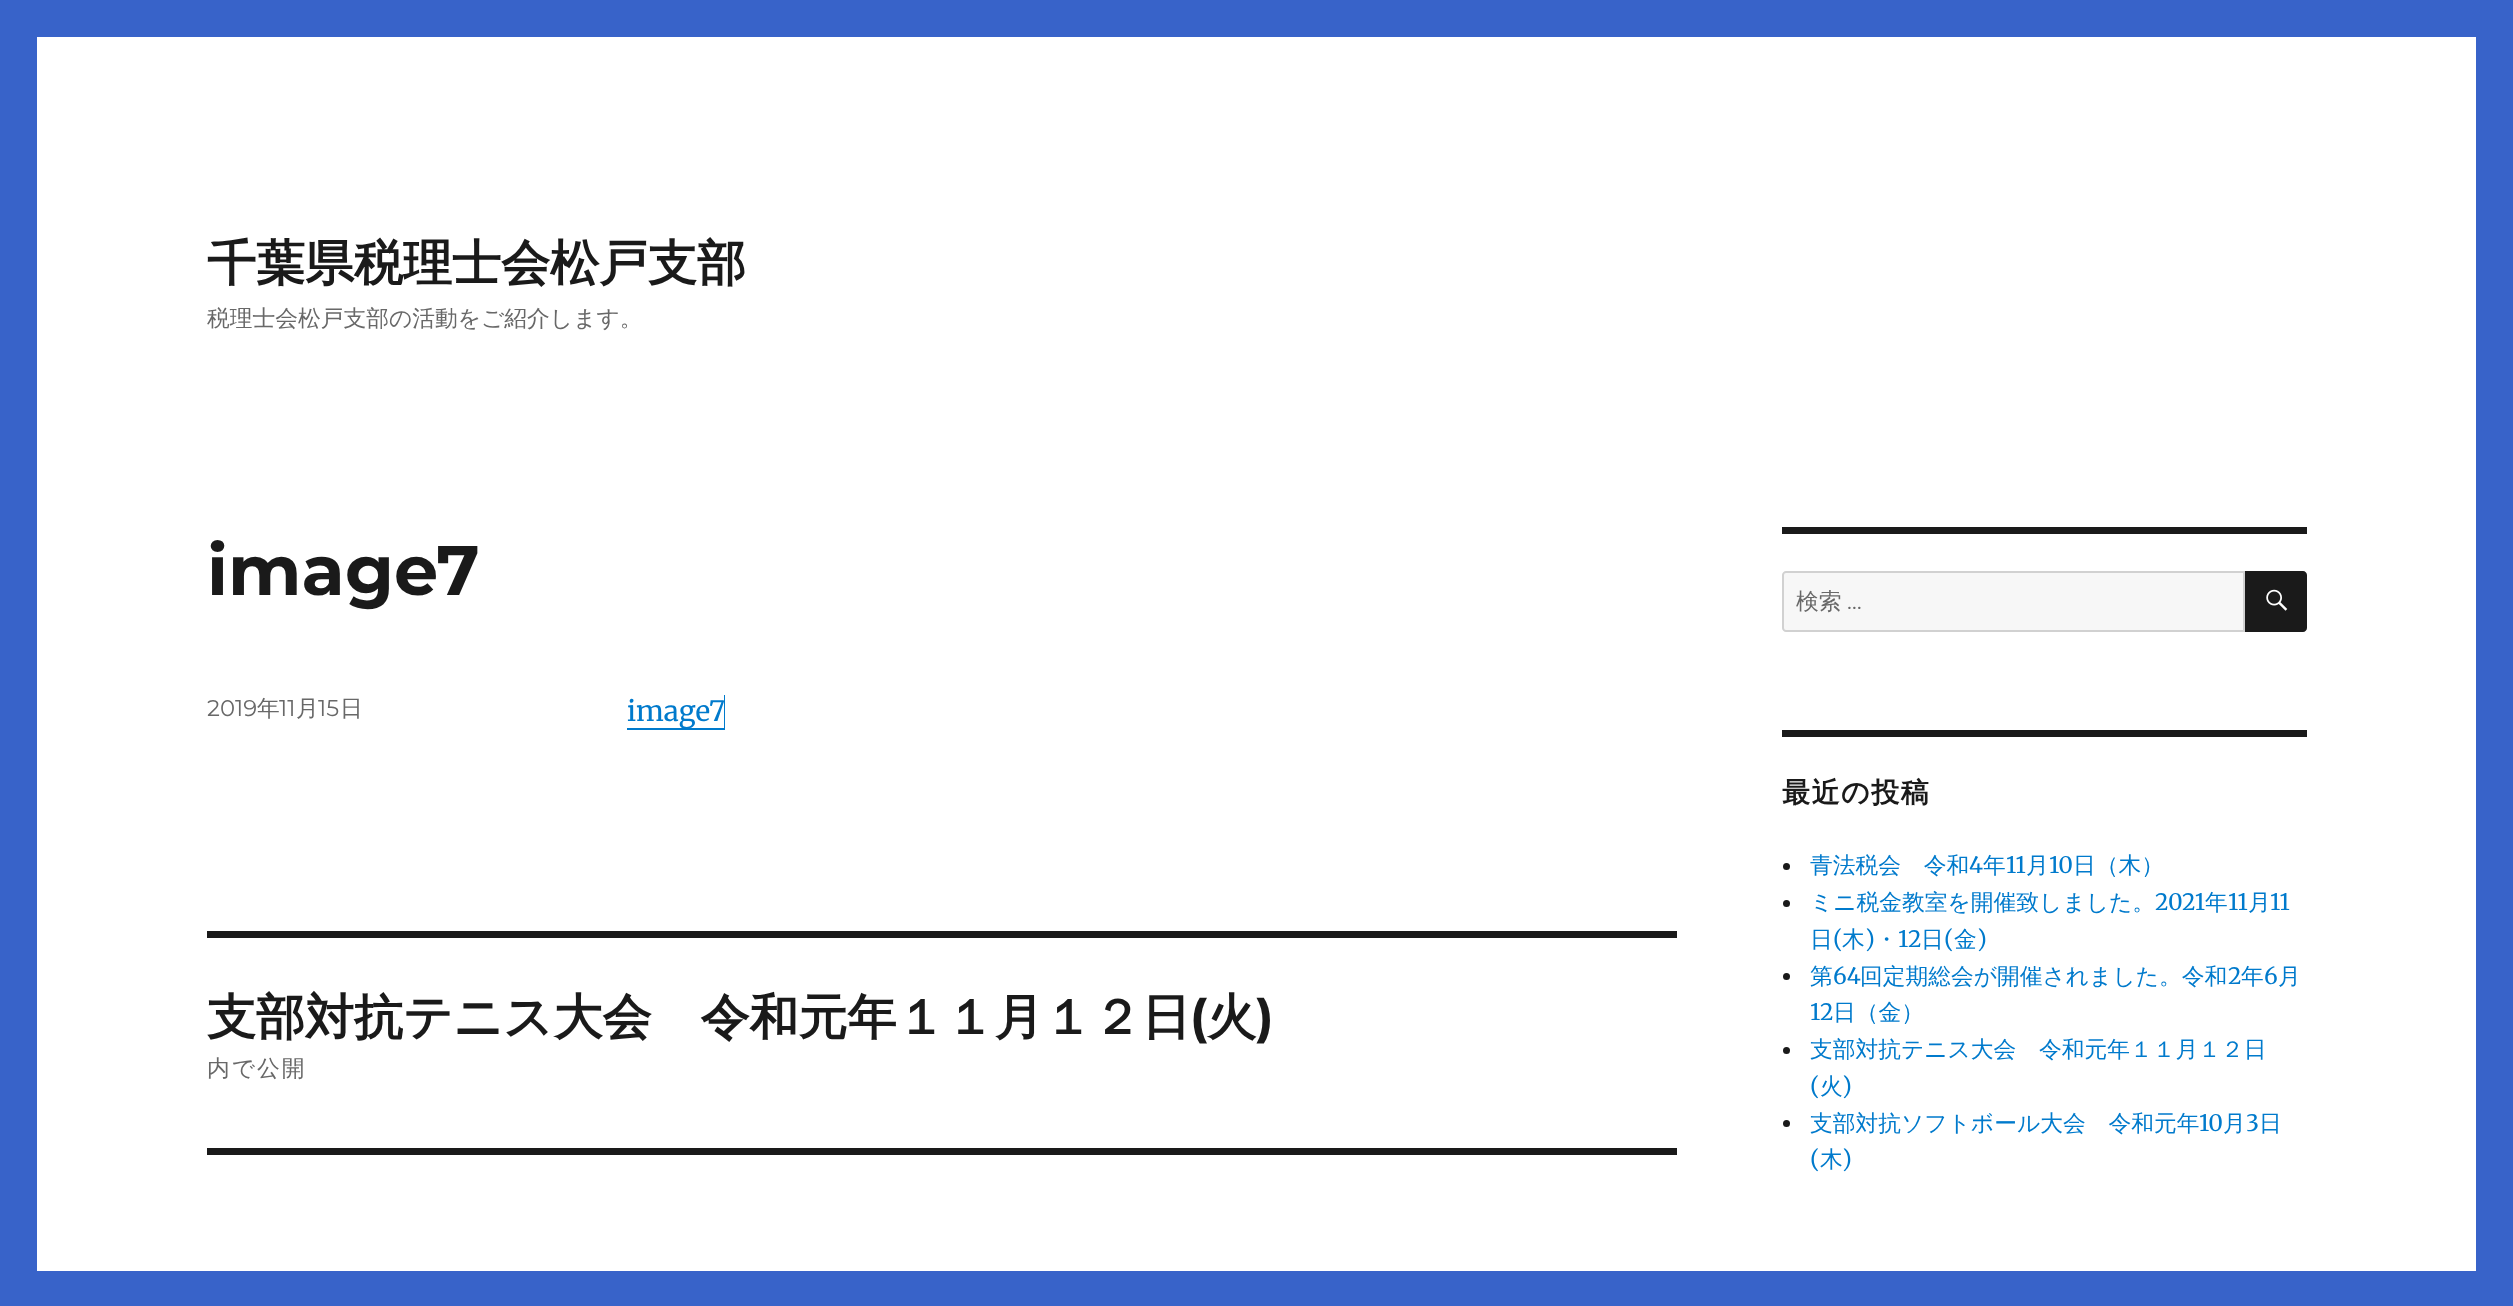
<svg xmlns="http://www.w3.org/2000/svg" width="2513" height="1306">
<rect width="100%" height="100%" fill="#3863c9"/>
<rect x="37" y="37" width="2439" height="1234" fill="#fff"/>
<text x="207" y="280" style="font-family:WenQuanYi Zen Hei;font-size:49px;font-weight:bold;fill:#1a1a1a">千葉県税理士会松戸支部</text>
<text x="207" y="326" style="font-family:WenQuanYi Zen Hei;font-size:22.75px;font-weight:500;fill:#686868">税理士会松戸支部の活動をご紹介します。</text>
<text x="207" y="595" style="font-family:Montserrat;font-size:70px;font-weight:bold;fill:#1a1a1a">image7</text>
<text x="207" y="716" style="font-family:Montserrat;font-size:22.75px;fill:#686868">2019</text>
<text x="257" y="716" style="font-family:WenQuanYi Zen Hei;font-size:22.75px;font-weight:500;fill:#686868">年</text>
<text x="279" y="716" style="font-family:Montserrat;font-size:22.75px;fill:#686868">11</text>
<text x="296" y="716" style="font-family:WenQuanYi Zen Hei;font-size:22.75px;font-weight:500;fill:#686868">月</text>
<text x="318" y="716" style="font-family:Montserrat;font-size:22.75px;fill:#686868">15</text>
<text x="340" y="716" style="font-family:WenQuanYi Zen Hei;font-size:22.75px;font-weight:500;fill:#686868">日</text>
<path d="M627 728v2h98v-35h-1v33z" fill="#007acc"/>
<text x="627" y="721" style="font-family:Merriweather;font-size:28px;fill:#007acc">image7</text>
<rect x="207" y="931" width="1470" height="7" fill="#1a1a1a"/>
<rect x="207" y="1148" width="1470" height="7" fill="#1a1a1a"/>
<text x="207" y="1034" style="font-family:WenQuanYi Zen Hei;font-size:49px;font-weight:bold;fill:#1a1a1a">支部対抗テニス大会　令和元年１１月１２日</text>
<text x="1190" y="1034" style="font-family:Montserrat;font-size:49px;font-weight:bold;fill:#1a1a1a">(</text>
<text x="1207" y="1034" style="font-family:WenQuanYi Zen Hei;font-size:49px;font-weight:bold;fill:#1a1a1a">火</text>
<text x="1256" y="1034" style="font-family:Montserrat;font-size:49px;font-weight:bold;fill:#1a1a1a">)</text>
<text x="207" y="1076" style="font-family:WenQuanYi Zen Hei;font-size:22.75px;font-weight:500;letter-spacing:2px;fill:#686868">内で公開</text>
<rect x="1782" y="527" width="525" height="7" fill="#1a1a1a"/>
<path d="M1786 572h458v59h-458c-1.5 0-3-1.5-3-3v-53c0-1.5 1.5-3 3-3z" fill="#f7f7f7" stroke="#d1d1d1" stroke-width="2"/>
<text x="1796" y="609" style="font-family:WenQuanYi Zen Hei;font-size:22.75px;font-weight:500;fill:#686868">検索</text>
<text x="1847" y="609" style="font-family:Montserrat;font-size:22.75px;fill:#686868">…</text>
<path d="M2245 571h58c2 0 4 2 4 4v53c0 2-2 4-4 4h-58z" fill="#1a1a1a"/>
<image x="2266" y="589" width="22" height="22" href="media/1.png"/>
<rect x="1782" y="730" width="525" height="7" fill="#1a1a1a"/>
<text x="1782" y="802" style="font-family:WenQuanYi Zen Hei;font-size:28px;font-weight:bold;letter-spacing:1.5px;fill:#1a1a1a">最近の投稿</text>
<circle cx="1786.5" cy="866.5" r="3.5" fill="#1a1a1a"/>
<text x="1810" y="873" style="font-family:WenQuanYi Zen Hei;font-size:22.75px;font-weight:500;fill:#007acc">青法税会　令和</text>
<text x="1969" y="873" style="font-family:Merriweather;font-size:22.75px;fill:#007acc">4</text>
<text x="1983" y="873" style="font-family:WenQuanYi Zen Hei;font-size:22.75px;font-weight:500;fill:#007acc">年</text>
<text x="2006" y="873" style="font-family:Merriweather;font-size:22.75px;fill:#007acc">11</text>
<text x="2026" y="873" style="font-family:WenQuanYi Zen Hei;font-size:22.75px;font-weight:500;fill:#007acc">月</text>
<text x="2049" y="873" style="font-family:Merriweather;font-size:22.75px;fill:#007acc">10</text>
<text x="2073" y="873" style="font-family:WenQuanYi Zen Hei;font-size:22.75px;font-weight:500;fill:#007acc">日（木）</text>
<circle cx="1786.5" cy="903.5" r="3.5" fill="#1a1a1a"/>
<text x="1810" y="910" style="font-family:WenQuanYi Zen Hei;font-size:22.75px;font-weight:500;fill:#007acc">ミニ税金教室を開催致しました。</text>
<text x="2155" y="910" style="font-family:Merriweather;font-size:22.75px;fill:#007acc">2021</text>
<text x="2205" y="910" style="font-family:WenQuanYi Zen Hei;font-size:22.75px;font-weight:500;fill:#007acc">年</text>
<text x="2228" y="910" style="font-family:Merriweather;font-size:22.75px;fill:#007acc">11</text>
<text x="2248" y="910" style="font-family:WenQuanYi Zen Hei;font-size:22.75px;font-weight:500;fill:#007acc">月</text>
<text x="2270" y="910" style="font-family:Merriweather;font-size:22.75px;fill:#007acc">11</text>
<text x="1810" y="947" style="font-family:WenQuanYi Zen Hei;font-size:22.75px;font-weight:500;fill:#007acc">日</text>
<text x="1833" y="947" style="font-family:Merriweather;font-size:22.75px;fill:#007acc">(</text>
<text x="1842" y="947" style="font-family:WenQuanYi Zen Hei;font-size:22.75px;font-weight:500;fill:#007acc">木</text>
<text x="1865" y="947" style="font-family:Merriweather;font-size:22.75px;fill:#007acc">)</text>
<text x="1875" y="947" style="font-family:WenQuanYi Zen Hei;font-size:22.75px;font-weight:500;fill:#007acc">・</text>
<text x="1898" y="947" style="font-family:Merriweather;font-size:22.75px;fill:#007acc">12</text>
<text x="1921" y="947" style="font-family:WenQuanYi Zen Hei;font-size:22.75px;font-weight:500;fill:#007acc">日</text>
<text x="1944" y="947" style="font-family:Merriweather;font-size:22.75px;fill:#007acc">(</text>
<text x="1954" y="947" style="font-family:WenQuanYi Zen Hei;font-size:22.75px;font-weight:500;fill:#007acc">金</text>
<text x="1977" y="947" style="font-family:Merriweather;font-size:22.75px;fill:#007acc">)</text>
<circle cx="1786.5" cy="976.5" r="3.5" fill="#1a1a1a"/>
<text x="1810" y="984" style="font-family:WenQuanYi Zen Hei;font-size:22.75px;font-weight:500;fill:#007acc">第</text>
<text x="1833" y="984" style="font-family:Merriweather;font-size:22.75px;fill:#007acc">64</text>
<text x="1860" y="984" style="font-family:WenQuanYi Zen Hei;font-size:22.75px;font-weight:500;fill:#007acc">回定期総会が開催されました。令和</text>
<text x="2228" y="984" style="font-family:Merriweather;font-size:22.75px;fill:#007acc">2</text>
<text x="2241" y="984" style="font-family:WenQuanYi Zen Hei;font-size:22.75px;font-weight:500;fill:#007acc">年</text>
<text x="2264" y="984" style="font-family:Merriweather;font-size:22.75px;fill:#007acc">6</text>
<text x="2278" y="984" style="font-family:WenQuanYi Zen Hei;font-size:22.75px;font-weight:500;fill:#007acc">月</text>
<text x="1810" y="1020" style="font-family:Merriweather;font-size:22.75px;fill:#007acc">12</text>
<text x="1833" y="1020" style="font-family:WenQuanYi Zen Hei;font-size:22.75px;font-weight:500;fill:#007acc">日（金）</text>
<circle cx="1786.5" cy="1050.5" r="3.5" fill="#1a1a1a"/>
<text x="1810" y="1057" style="font-family:WenQuanYi Zen Hei;font-size:22.75px;font-weight:500;fill:#007acc">支部対抗テニス大会　令和元年１１月１２日</text>
<text x="1810" y="1094" style="font-family:Merriweather;font-size:22.75px;fill:#007acc">(</text>
<text x="1820" y="1094" style="font-family:WenQuanYi Zen Hei;font-size:22.75px;font-weight:500;fill:#007acc">火</text>
<text x="1842" y="1094" style="font-family:Merriweather;font-size:22.75px;fill:#007acc">)</text>
<circle cx="1786.5" cy="1123.5" r="3.5" fill="#1a1a1a"/>
<text x="1810" y="1131" style="font-family:WenQuanYi Zen Hei;font-size:22.75px;font-weight:500;fill:#007acc">支部対抗ソフトボール大会　令和元年</text>
<text x="2199" y="1131" style="font-family:Merriweather;font-size:22.75px;fill:#007acc">10</text>
<text x="2223" y="1131" style="font-family:WenQuanYi Zen Hei;font-size:22.75px;font-weight:500;fill:#007acc">月</text>
<text x="2246" y="1131" style="font-family:Merriweather;font-size:22.75px;fill:#007acc">3</text>
<text x="2259" y="1131" style="font-family:WenQuanYi Zen Hei;font-size:22.75px;font-weight:500;fill:#007acc">日</text>
<text x="1810" y="1167" style="font-family:Merriweather;font-size:22.75px;fill:#007acc">(</text>
<text x="1820" y="1167" style="font-family:WenQuanYi Zen Hei;font-size:22.75px;font-weight:500;fill:#007acc">木</text>
<text x="1842" y="1167" style="font-family:Merriweather;font-size:22.75px;fill:#007acc">)</text>
</svg>
